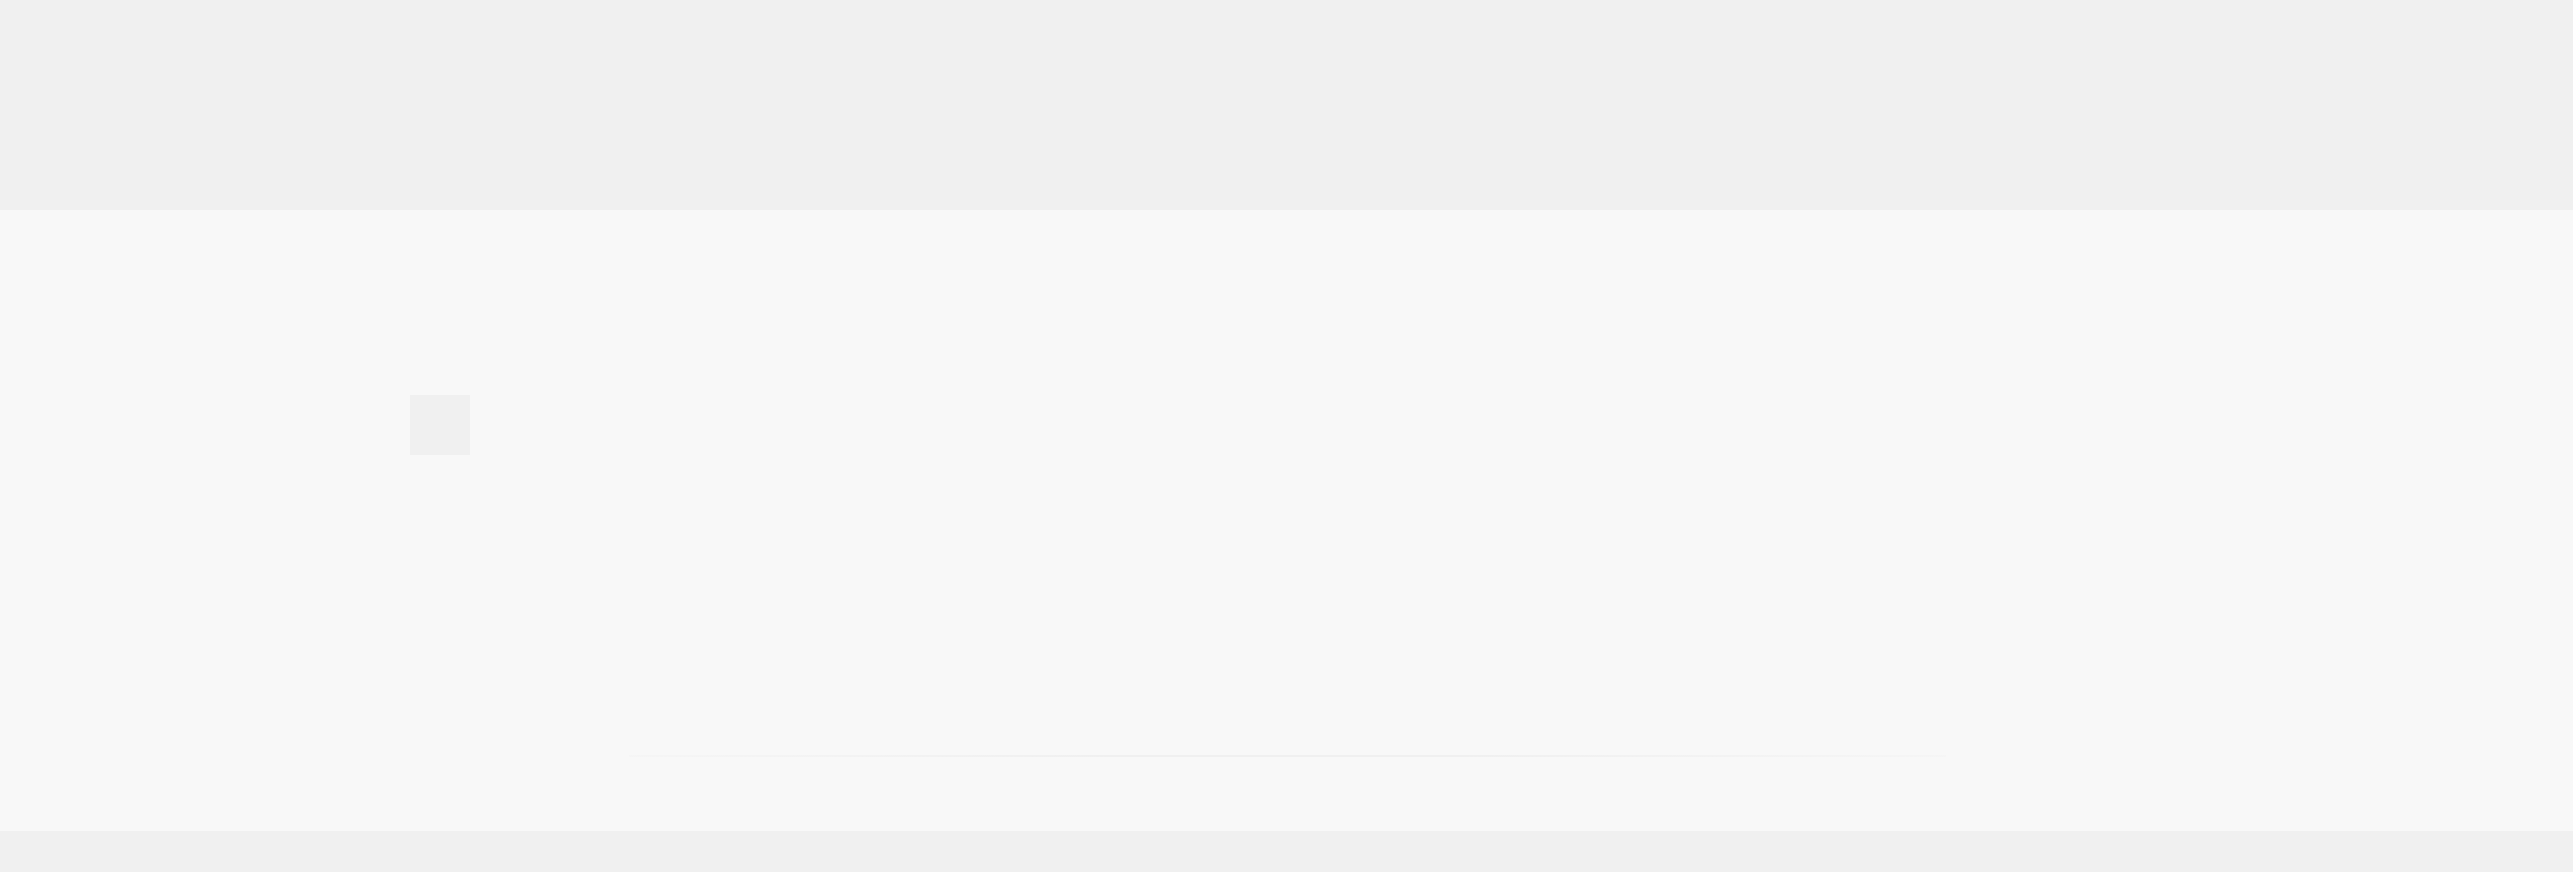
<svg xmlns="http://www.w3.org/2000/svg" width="2573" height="872">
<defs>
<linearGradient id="g1" gradientUnits="userSpaceOnUse" x1="410" y1="755" x2="2165" y2="755"><stop offset="0" stop-color="#f8f8f8"/><stop offset="0.4" stop-color="#f0f0f0"/><stop offset="0.6" stop-color="#f0f0f0"/><stop offset="1" stop-color="#f8f8f8"/></linearGradient>
</defs>
<rect width="100%" height="100%" fill="#f8f8f8"/>
<rect width="2573" height="210" fill="#f0f0f0"/>
<rect x="410" y="395" width="60" height="60" fill="#f0f0f0"/>
<rect x="629" y="755" width="1317" height="2" fill="url(#g1)"/>
<rect y="831" width="2573" height="41" fill="#f0f0f0"/>
</svg>
